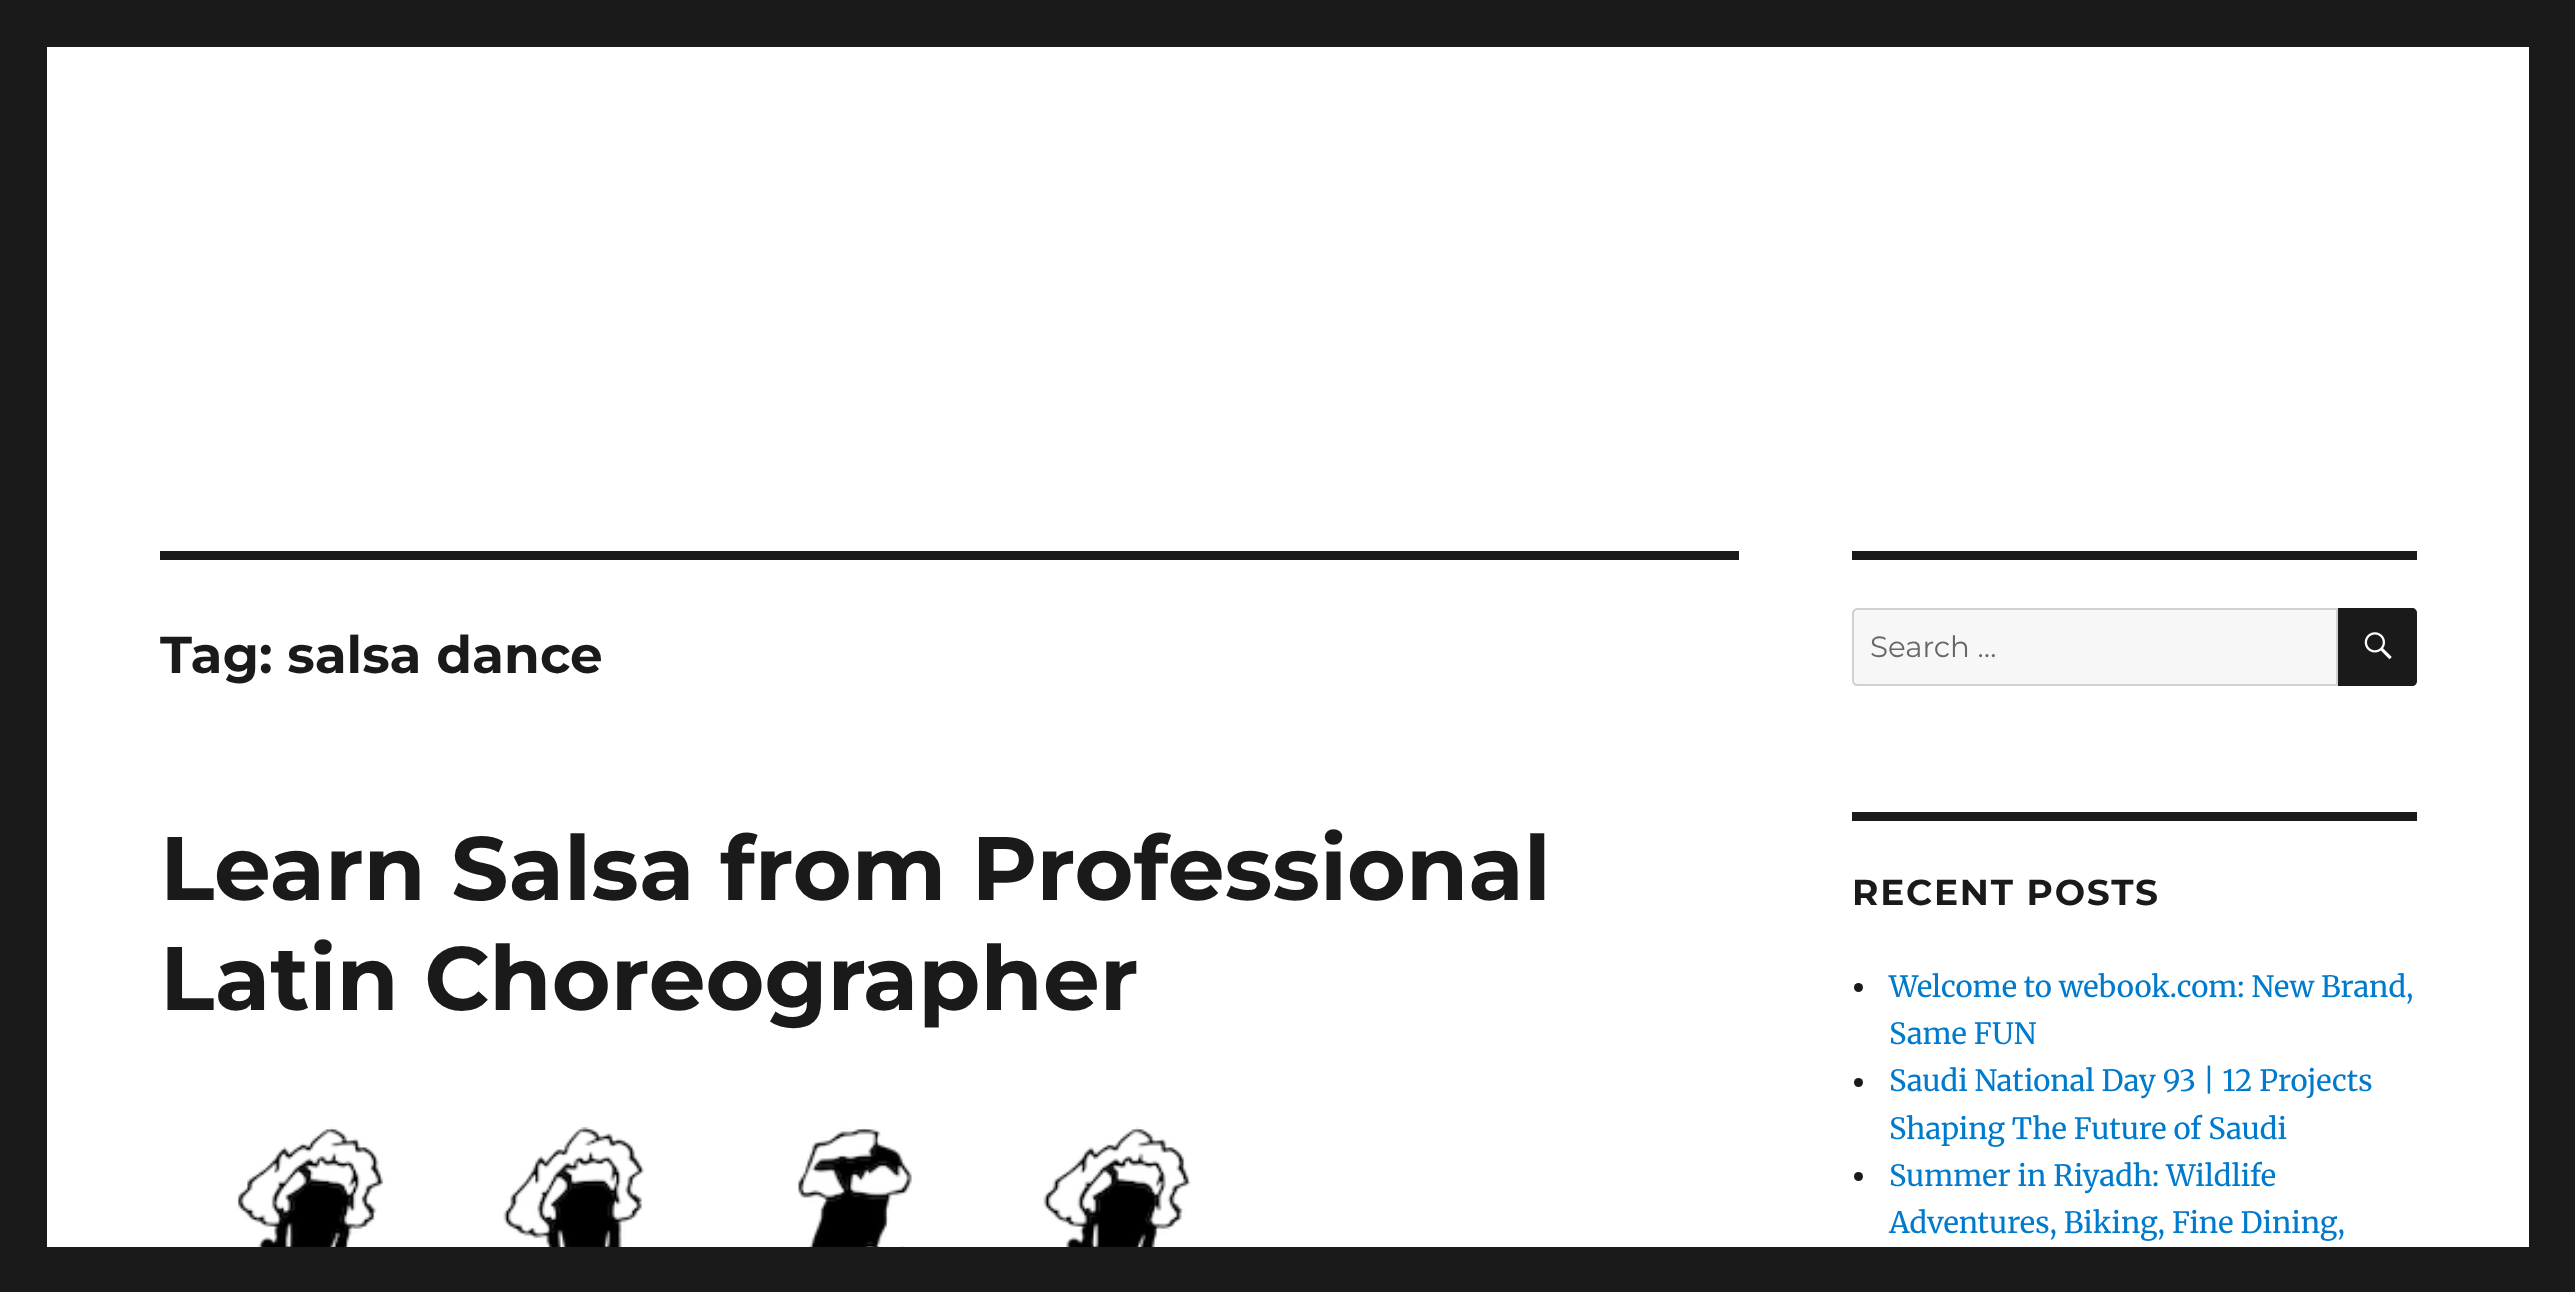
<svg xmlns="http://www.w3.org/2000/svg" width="2575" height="1292">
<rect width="100%" height="100%" fill="#1a1a1a"/>
<rect x="47" y="47" width="2482" height="1200" fill="#fff"/>
<rect x="160" y="551" width="1579" height="9" fill="#1a1a1a"/>
<text x="160" y="673" style="font-family:Montserrat;font-size:51.75px;font-weight:bold;fill:#1a1a1a">Tag: salsa dance</text>
<text x="160" y="900" style="font-family:Montserrat;font-size:90px;font-weight:bold;fill:#1a1a1a">Learn Salsa from Professional</text>
<text x="160" y="1010" style="font-family:Montserrat;font-size:90px;font-weight:bold;fill:#1a1a1a">Latin Choreographer</text>
<image x="236" y="1127" width="955" height="120" href="media/1.png"/>
<rect x="1852" y="551" width="565" height="9" fill="#1a1a1a"/>
<path d="M1857 609h480v76h-480c-2 0-4-2-4-4v-68c0-2 2-4 4-4z" fill="#f7f7f7" stroke="#d1d1d1" stroke-width="2"/>
<text x="1870" y="657" style="font-family:Montserrat;font-size:29.25px;fill:#686868">Search …</text>
<path d="M2338 608h74c3 0 5 2 5 5v68c0 3-2 5-5 5h-74z" fill="#1a1a1a"/>
<image x="2364" y="632" width="28" height="28" href="media/2.png"/>
<rect x="1852" y="812" width="565" height="9" fill="#1a1a1a"/>
<text x="1852" y="905" style="font-family:Montserrat;font-size:36px;font-weight:bold;letter-spacing:1.75px;fill:#1a1a1a">RECENT POSTS</text>
<circle cx="1858.5" cy="987.5" r="4.5" fill="#1a1a1a"/>
<text x="1889" y="997" style="font-family:Merriweather;font-size:29.25px;fill:#007acc">Welcome to webook.com: New Brand,</text>
<text x="1889" y="1044" style="font-family:Merriweather;font-size:29.25px;fill:#007acc">Same FUN</text>
<circle cx="1858.5" cy="1082.5" r="4.5" fill="#1a1a1a"/>
<text x="1889" y="1091" style="font-family:Merriweather;font-size:29.25px;fill:#007acc">Saudi National Day 93 | 12 Projects</text>
<text x="1889" y="1139" style="font-family:Merriweather;font-size:29.25px;fill:#007acc">Shaping The Future of Saudi</text>
<circle cx="1858.5" cy="1176.5" r="4.5" fill="#1a1a1a"/>
<text x="1889" y="1186" style="font-family:Merriweather;font-size:29.25px;fill:#007acc">Summer in Riyadh: Wildlife</text>
<text x="1889" y="1233" style="font-family:Merriweather;font-size:29.25px;fill:#007acc">Adventures, Biking, Fine Dining,</text>
</svg>
